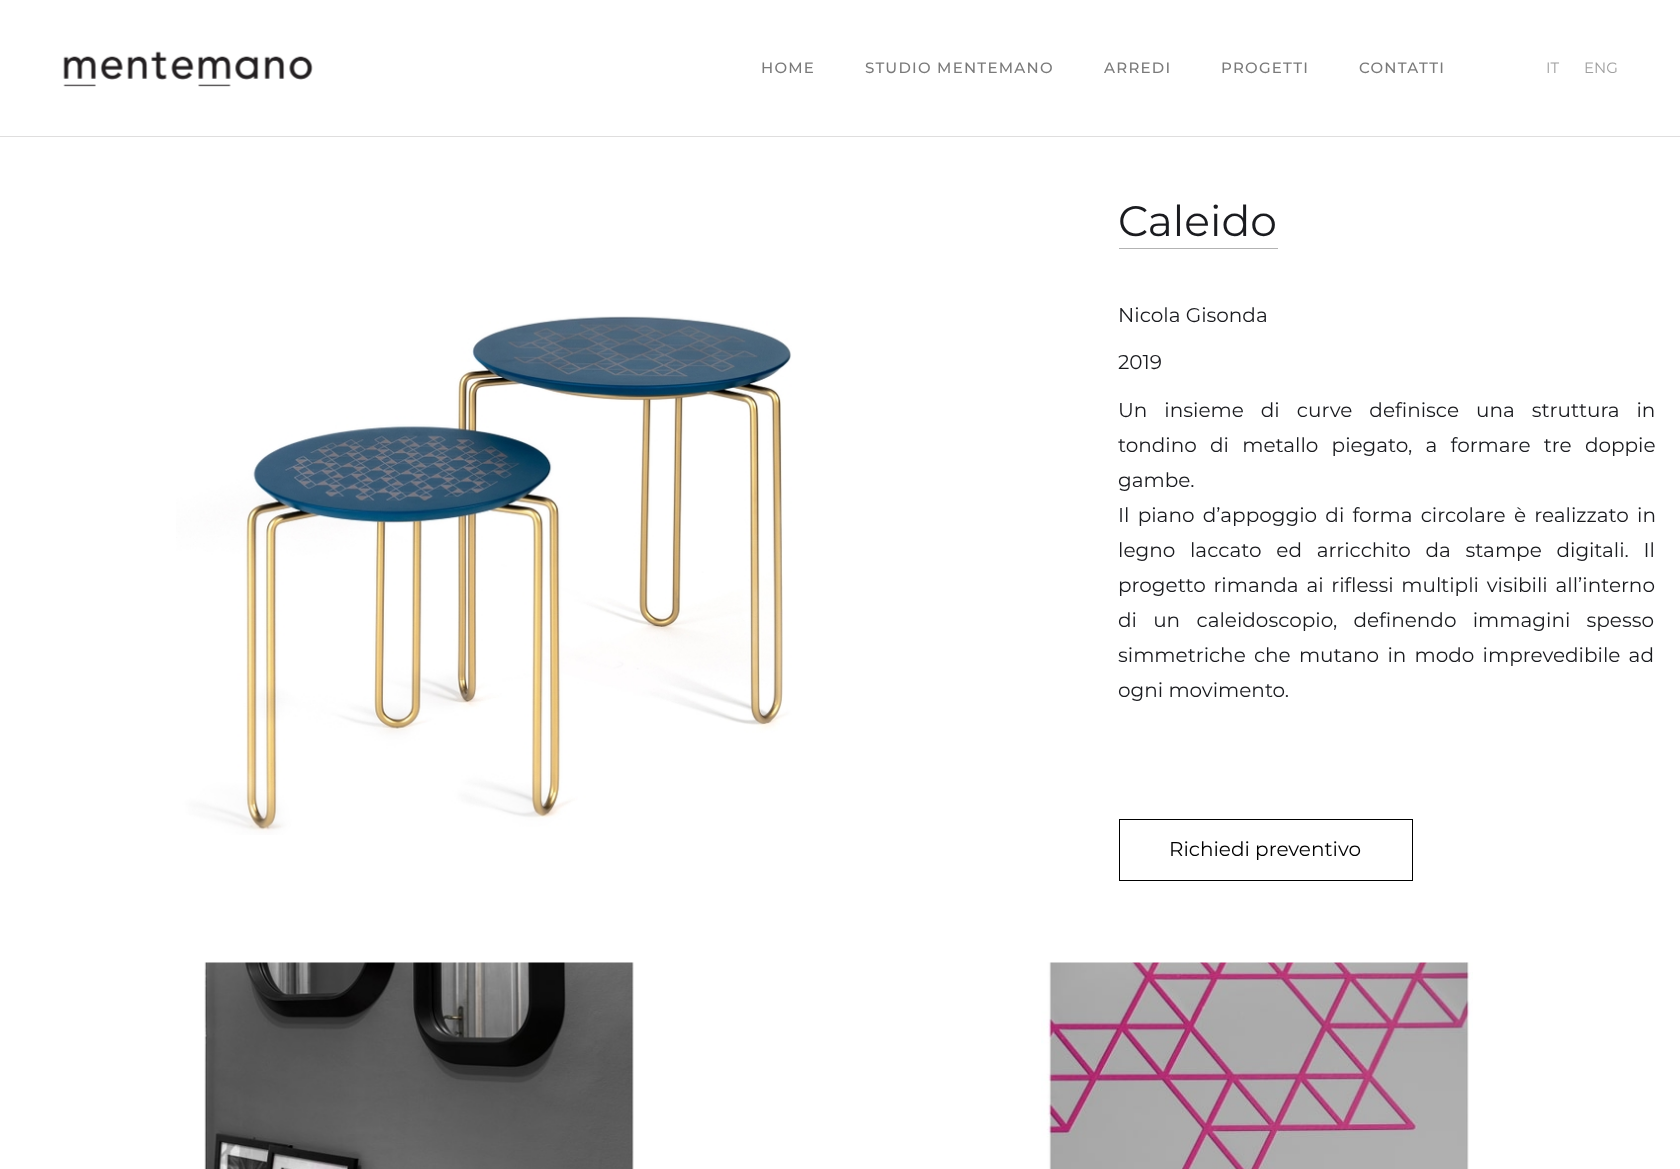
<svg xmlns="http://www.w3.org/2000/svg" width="1680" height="1169">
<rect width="100%" height="100%" fill="#fff"/>
<rect y="136" width="1680" height="1" fill="#dfdede"/>
<image x="63" y="51" width="250" height="36" href="media/1.png"/>
<text x="761" y="73" style="font-family:Montserrat;font-size:15px;font-weight:500;letter-spacing:1.25px;fill:#7a7a7a">HOME</text>
<text x="865" y="73" style="font-family:Montserrat;font-size:15px;font-weight:500;letter-spacing:1.25px;fill:#7a7a7a">STUDIO MENTEMANO</text>
<text x="1104" y="73" style="font-family:Montserrat;font-size:15px;font-weight:500;letter-spacing:1.25px;fill:#7a7a7a">ARREDI</text>
<text x="1221" y="73" style="font-family:Montserrat;font-size:15px;font-weight:500;letter-spacing:1.25px;fill:#7a7a7a">PROGETTI</text>
<text x="1359" y="73" style="font-family:Montserrat;font-size:15px;font-weight:500;letter-spacing:1.25px;fill:#7a7a7a">CONTATTI</text>
<text x="1546" y="73" style="font-family:Montserrat;font-size:15px;fill:#a0a0a0">IT</text>
<text x="1584" y="73" style="font-family:Montserrat;font-size:15px;fill:#a0a0a0">ENG</text>
<image x="176" y="316" width="616" height="519" href="media/2.png"/>
<rect x="1119" y="248" width="159" height="1" fill="#b3b3b3"/>
<text x="1118" y="236" style="font-family:Montserrat;font-size:42.5px;fill:#1a1b1f">Caleido</text>
<text x="1118" y="322" style="font-family:Montserrat;font-size:20px;fill:#1a1b1f">Nicola Gisonda</text>
<text x="1118" y="369" style="font-family:Montserrat;font-size:20px;fill:#1a1b1f">2019</text>
<text x="1118" y="417" word-spacing="11.75" style="font-family:Montserrat;font-size:20px;fill:#1a1b1f">Un insieme di curve definisce una struttura in</text>
<text x="1118" y="452" word-spacing="8" style="font-family:Montserrat;font-size:20px;fill:#1a1b1f">tondino di metallo piegato, a formare tre doppie</text>
<text x="1118" y="487" style="font-family:Montserrat;font-size:20px;fill:#1a1b1f">gambe.</text>
<text x="1118" y="522" word-spacing="3" style="font-family:Montserrat;font-size:20px;fill:#1a1b1f">Il piano d’appoggio di forma circolare è realizzato in</text>
<text x="1118" y="557" word-spacing="9.5" style="font-family:Montserrat;font-size:20px;fill:#1a1b1f">legno laccato ed arricchito da stampe digitali. Il</text>
<text x="1118" y="592" word-spacing="2.5" style="font-family:Montserrat;font-size:20px;fill:#1a1b1f">progetto rimanda ai riflessi multipli visibili all’interno</text>
<text x="1118" y="627" word-spacing="11" style="font-family:Montserrat;font-size:20px;fill:#1a1b1f">di un caleidoscopio, definendo immagini spesso</text>
<text x="1118" y="662" word-spacing="3" style="font-family:Montserrat;font-size:20px;fill:#1a1b1f">simmetriche che mutano in modo imprevedibile ad</text>
<text x="1118" y="697" style="font-family:Montserrat;font-size:20px;fill:#1a1b1f">ogni movimento.</text>
<rect x="1119.5" y="819.5" width="293" height="61" fill="none" stroke="#000"/>
<text x="1169" y="856" style="font-family:Montserrat;font-size:20px;fill:#000">Richiedi preventivo</text>
<image x="204" y="962" width="430" height="207" href="media/3.png"/>
<image x="1041" y="962" width="432" height="207" href="media/4.png"/>
</svg>
